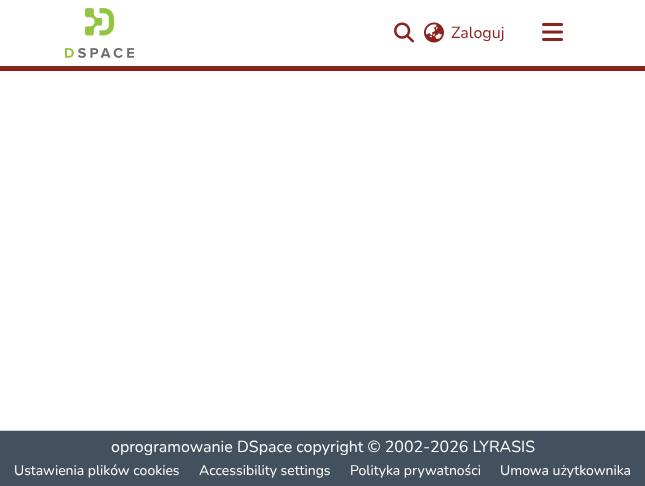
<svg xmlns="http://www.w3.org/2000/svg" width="645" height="486">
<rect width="100%" height="100%" fill="#fff"/>
<rect y="66" width="645" height="5" fill="#8b231d"/>
<image x="65" y="8" width="69" height="50" href="media/1.png"/>
<image x="394" y="22" width="20" height="21" href="media/2.png"/>
<image x="424" y="22" width="20" height="21" href="media/3.png"/>
<text x="451" y="38" style="font-family:Nunito;font-size:16px;fill:#8b231d">Zaloguj</text>
<image x="542" y="23" width="21" height="18" href="media/4.png"/>
<rect y="431" width="645" height="55" fill="#43515f"/>
<rect y="430" width="645" height="1" fill="#ced4da"/>
<text x="111" y="452" style="font-family:Nunito;font-size:16px;fill:#fff">oprogramowanie DSpace copyright © 2002-2026 LYRASIS</text>
<text x="14" y="475" style="font-family:Nunito;font-size:14px;fill:#fff">Ustawienia plików cookies</text>
<rect x="189" y="459" width="1" height="23" fill="#495057"/>
<text x="199" y="475" style="font-family:Nunito;font-size:14px;fill:#fff">Accessibility settings</text>
<rect x="340" y="459" width="1" height="23" fill="#495057"/>
<text x="350" y="475" style="font-family:Nunito;font-size:14px;fill:#fff">Polityka prywatności</text>
<rect x="490" y="459" width="1" height="23" fill="#495057"/>
<text x="500" y="475" style="font-family:Nunito;font-size:14px;fill:#fff">Umowa użytkownika</text>
</svg>
